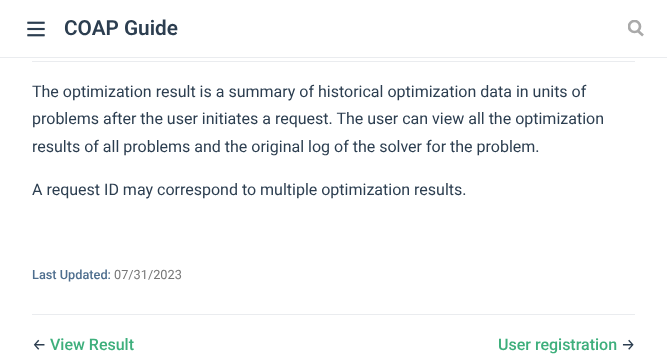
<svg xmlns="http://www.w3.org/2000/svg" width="667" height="357">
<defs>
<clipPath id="clip1"><rect x="628" y="20" width="16" height="18"/></clipPath>
</defs>
<rect width="100%" height="100%" fill="#fff"/>
<rect y="57" width="667" height="1" fill="#eaecef"/>
<image x="27" y="21" width="18" height="16" href="media/1.png"/>
<text x="64" y="35" style="font-family:Roboto;font-size:20.75px;font-weight:600;fill:#2c3e50">COAP Guide</text>
<path d="M643 35.5l-5.5-5" fill="none" stroke="#aaa" stroke-width="2.7"/>
<g clip-path="url(#clip1)">
<circle cx="634.5" cy="26.5" r="5.5" fill="none" stroke="#aaa" stroke-width="2.7"/>
</g>
<rect x="32" y="61" width="603" height="1" fill="#eaecef"/>
<text x="32" y="97" style="font-family:Roboto;font-size:16px;fill:#2c3e50">The optimization result is a summary of historical optimization data in units of</text>
<text x="32" y="124" style="font-family:Roboto;font-size:16px;fill:#2c3e50">problems after the user initiates a request. The user can view all the optimization</text>
<text x="32" y="152" style="font-family:Roboto;font-size:16px;fill:#2c3e50">results of all problems and the original log of the solver for the problem.</text>
<text x="32" y="195" style="font-family:Roboto;font-size:16px;fill:#2c3e50">A request ID may correspond to multiple optimization results.</text>
<text x="32" y="279" style="font-family:Roboto;font-size:12.75px;font-weight:500;fill:#4e6e8e">Last Updated:</text>
<text x="114" y="279" style="font-family:Roboto;font-size:12.75px;fill:#767676">07/31/2023</text>
<rect x="32" y="314" width="603" height="1" fill="#eaecef"/>
<text x="32" y="350" style="font-family:Fira Sans;font-size:16px;fill:#2c3e50">←</text>
<text x="50" y="350" style="font-family:Roboto;font-size:16px;font-weight:500;fill:#3eaf7c">View Result</text>
<text x="498" y="350" style="font-family:Roboto;font-size:16px;font-weight:500;fill:#3eaf7c">User registration</text>
<text x="621" y="350" style="font-family:Fira Sans;font-size:16px;fill:#2c3e50">→</text>
</svg>
